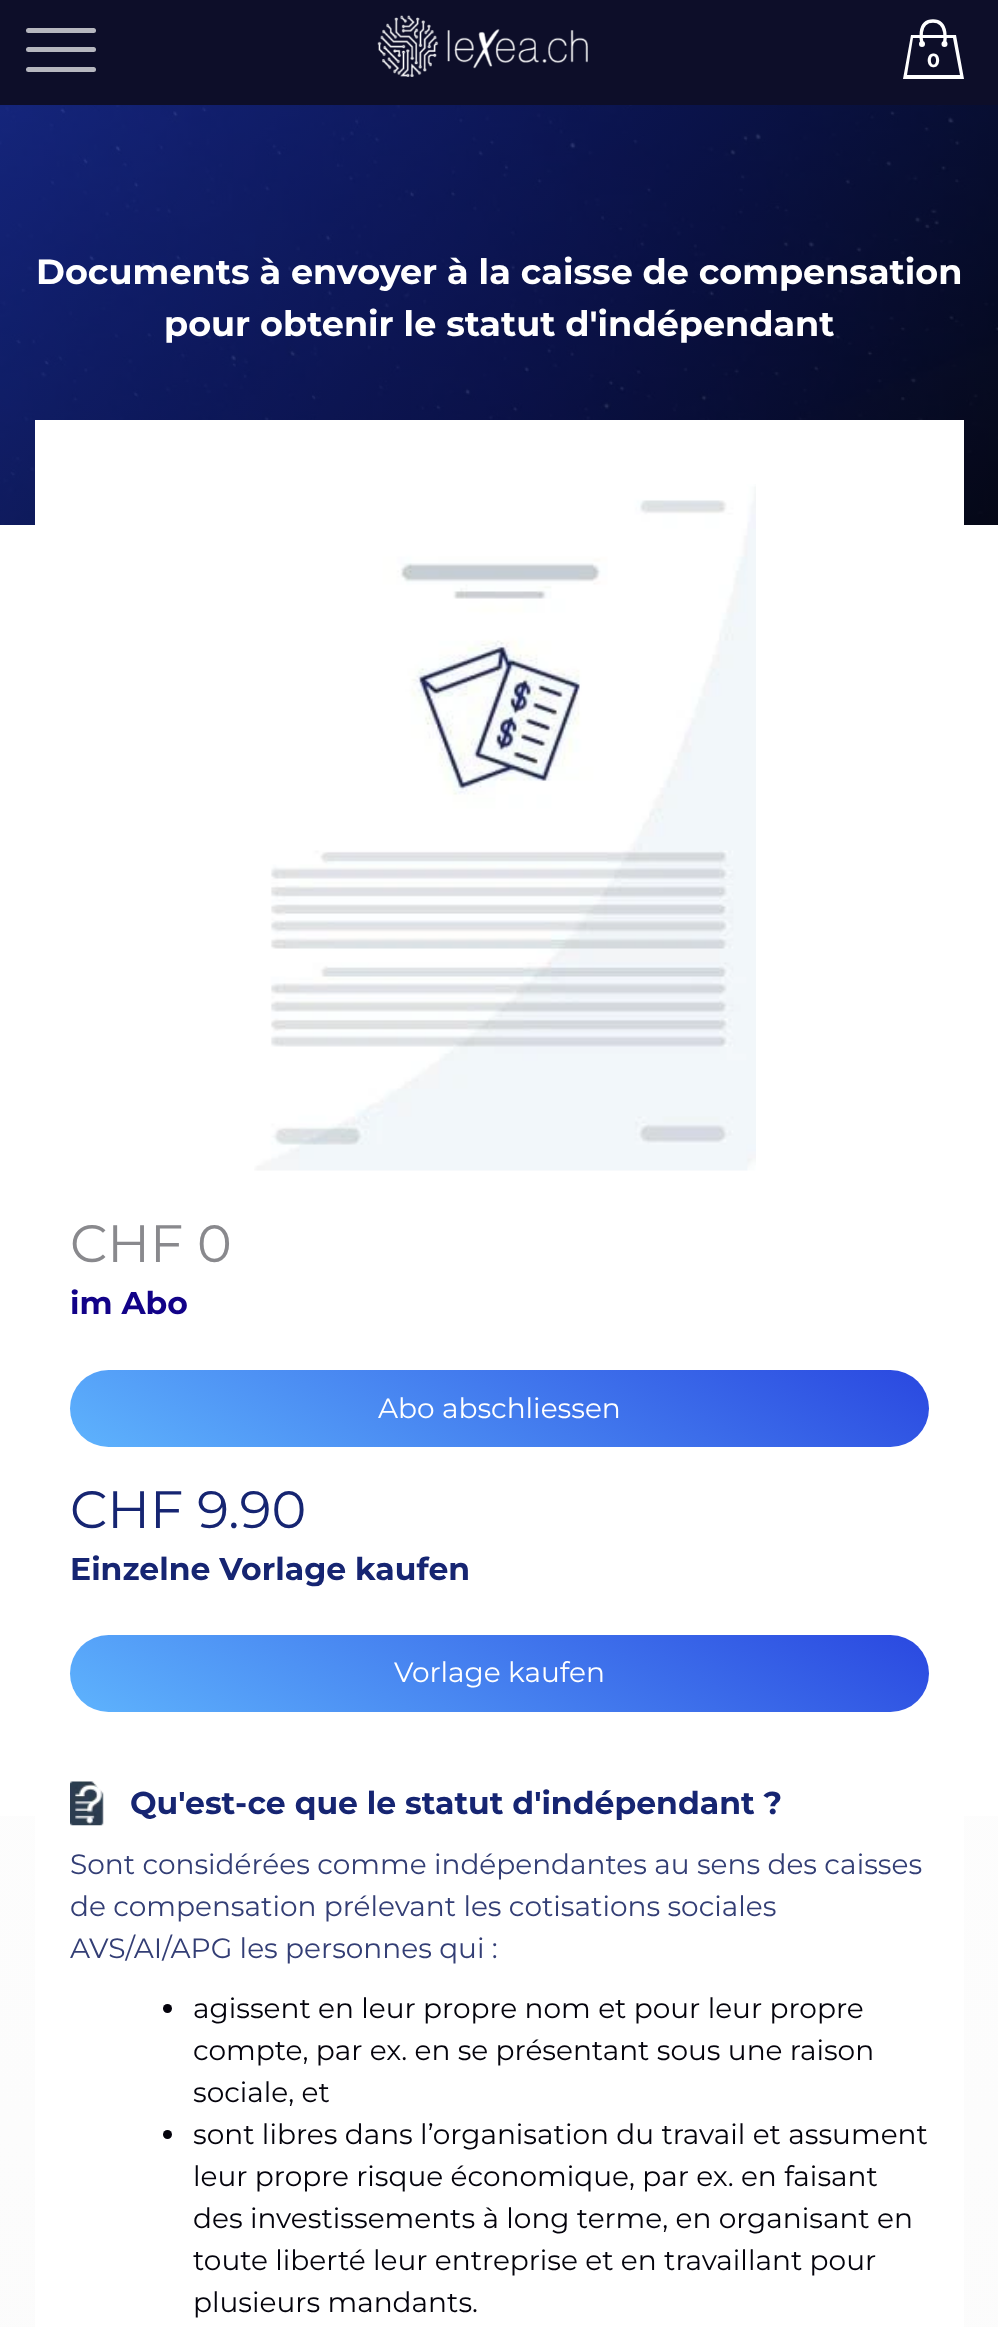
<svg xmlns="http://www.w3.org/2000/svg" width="998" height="2327">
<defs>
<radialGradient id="g1" gradientUnits="userSpaceOnUse" cx="500" cy="525" r="4470"><stop offset="0" stop-color="#fff"/><stop offset="1" stop-color="#f7f7f7"/></radialGradient>
<linearGradient id="g2" gradientUnits="userSpaceOnUse" x1="624" y1="1194" x2="376" y2="1624"><stop offset="0" stop-color="#2a48e0"/><stop offset="1" stop-color="#5eb3fd"/></linearGradient>
<linearGradient id="g3" gradientUnits="userSpaceOnUse" x1="624" y1="1458" x2="376" y2="1888"><stop offset="0" stop-color="#2a48e0"/><stop offset="1" stop-color="#5eb3fd"/></linearGradient>
</defs>
<rect width="100%" height="100%" fill="#fff"/>
<rect width="998" height="105" fill="#0d0e29"/>
<rect x="26" y="28" width="70" height="5" rx="2.5" fill="#b6b7bf"/>
<rect x="26" y="47" width="70" height="5" rx="2.5" fill="#b6b7bf"/>
<rect x="26" y="67" width="70" height="5" rx="2.5" fill="#b6b7bf"/>
<image x="377" y="15" width="211" height="62" href="media/1.png"/>
<path d="M913 38l-6 37h53l-7-37h-40m-2-3h45l8 44h-61z" fill="#fff"/>
<path d="M922 43.5c0 0-5.5-22.5 11-22.5c16 0 11.5 22.5 11.5 22.5" fill="none" stroke="#fff" stroke-width="3.3"/>
<circle cx="922" cy="44" r="3" fill="#fff"/>
<circle cx="944.5" cy="44" r="3" fill="#fff"/>
<text x="927" y="67" style="font-family:Montserrat;font-size:19px;font-weight:bold;fill:#fff">0</text>
<image x="0" y="105" width="998" height="420" href="media/2.png"/>
<text x="36" y="284" style="font-family:Montserrat;font-size:35px;font-weight:bold;fill:#fff">Documents à envoyer à la caisse de compensation</text>
<text x="164" y="336" style="font-family:Montserrat;font-size:35px;font-weight:bold;fill:#fff">pour obtenir le statut d'indépendant</text>
<rect y="1816" width="998" height="511" fill="url(#g1)"/>
<rect x="35" y="420" width="929" height="1907" fill="#fff"/>
<image x="254" y="484" width="502" height="687" href="media/3.png"/>
<text x="70" y="1262" style="font-family:Montserrat;font-size:52.5px;fill:#89898d">CHF 0</text>
<text x="70" y="1314" style="font-family:Montserrat;font-size:31.5px;font-weight:bold;fill:#120288">im Abo</text>
<rect x="70" y="1370" width="859" height="77" rx="38.5" fill="url(#g2)"/>
<text x="378" y="1418" style="font-family:Montserrat;font-size:28px;fill:#fff">Abo abschliessen</text>
<text x="70" y="1528" style="font-family:Montserrat;font-size:52.5px;fill:#162572">CHF 9.90</text>
<text x="70" y="1580" style="font-family:Montserrat;font-size:31.5px;font-weight:bold;fill:#162572">Einzelne Vorlage kaufen</text>
<rect x="70" y="1635" width="859" height="77" rx="38.5" fill="url(#g3)"/>
<text x="394" y="1682" style="font-family:Montserrat;font-size:28px;fill:#fff">Vorlage kaufen</text>
<image x="70" y="1781" width="34" height="45" href="media/4.png"/>
<text x="130" y="1814" style="font-family:Montserrat;font-size:31.5px;font-weight:bold;fill:#162572">Qu'est-ce que le statut d'indépendant ?</text>
<text x="70" y="1874" style="font-family:Montserrat;font-size:28px;fill:#333e75">Sont considérées comme indépendantes au sens des caisses</text>
<text x="70" y="1916" style="font-family:Montserrat;font-size:28px;fill:#333e75">de compensation prélevant les cotisations sociales</text>
<text x="70" y="1958" style="font-family:Montserrat;font-size:28px;fill:#333e75">AVS/AI/APG les personnes qui :</text>
<circle cx="167.5" cy="2008.5" r="4.5" fill="#04030c"/>
<text x="193" y="2018" style="font-family:Montserrat;font-size:28px;fill:#04030c">agissent en leur propre nom et pour leur propre</text>
<text x="193" y="2060" style="font-family:Montserrat;font-size:28px;fill:#04030c">compte, par ex. en se présentant sous une raison</text>
<text x="193" y="2102" style="font-family:Montserrat;font-size:28px;fill:#04030c">sociale, et</text>
<circle cx="167.5" cy="2134.5" r="4.5" fill="#04030c"/>
<text x="193" y="2144" style="font-family:Montserrat;font-size:28px;fill:#04030c">sont libres dans l’organisation du travail et assument</text>
<text x="193" y="2186" style="font-family:Montserrat;font-size:28px;fill:#04030c">leur propre risque économique, par ex. en faisant</text>
<text x="193" y="2228" style="font-family:Montserrat;font-size:28px;fill:#04030c">des investissements à long terme, en organisant en</text>
<text x="193" y="2270" style="font-family:Montserrat;font-size:28px;fill:#04030c">toute liberté leur entreprise et en travaillant pour</text>
<text x="193" y="2312" style="font-family:Montserrat;font-size:28px;fill:#04030c">plusieurs mandants.</text>
</svg>
